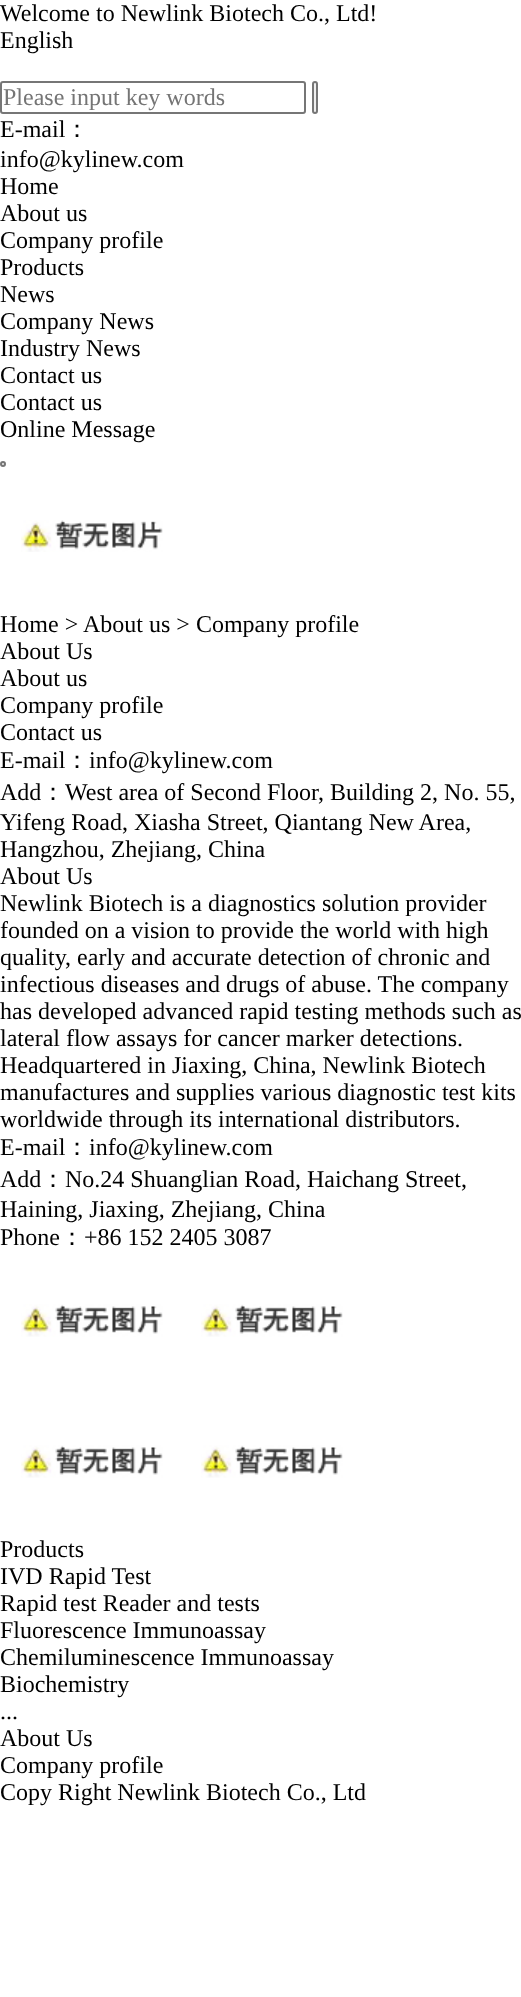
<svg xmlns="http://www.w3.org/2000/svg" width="521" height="1997">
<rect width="100%" height="100%" fill="#fff"/>
<text x="0" y="21" style="font-family:Liberation Serif;font-size:24px;fill:#000">Welcome to Newlink Biotech Co., Ltd!</text>
<text x="0" y="48" style="font-family:Liberation Serif;font-size:24px;fill:#000">English</text>
<rect x="1" y="82" width="304" height="31" rx="2" fill="none" stroke="#767676" stroke-width="2"/>
<text x="3" y="105" style="font-family:Liberation Serif;font-size:24px;fill:#757575">Please input key words</text>
<rect x="313" y="82" width="4" height="31" rx="2" fill="#efefef" stroke="#767676" stroke-width="2"/>
<text x="0" y="137" style="font-family:Liberation Serif;font-size:24px;fill:#000">E-mail</text>
<text x="65" y="137" style="font-family:WenQuanYi Zen Hei;font-size:24px;font-weight:500;fill:#000">：</text>
<text x="0" y="167" style="font-family:Liberation Serif;font-size:24px;fill:#000">info@kylinew.com</text>
<text x="0" y="194" style="font-family:Liberation Serif;font-size:24px;fill:#000">Home</text>
<text x="0" y="221" style="font-family:Liberation Serif;font-size:24px;fill:#000">About us</text>
<text x="0" y="248" style="font-family:Liberation Serif;font-size:24px;fill:#000">Company profile</text>
<text x="0" y="275" style="font-family:Liberation Serif;font-size:24px;fill:#000">Products</text>
<text x="0" y="302" style="font-family:Liberation Serif;font-size:24px;fill:#000">News</text>
<text x="0" y="329" style="font-family:Liberation Serif;font-size:24px;fill:#000">Company News</text>
<text x="0" y="356" style="font-family:Liberation Serif;font-size:24px;fill:#000">Industry News</text>
<text x="0" y="383" style="font-family:Liberation Serif;font-size:24px;fill:#000">Contact us</text>
<text x="0" y="410" style="font-family:Liberation Serif;font-size:24px;fill:#000">Contact us</text>
<text x="0" y="437" style="font-family:Liberation Serif;font-size:24px;fill:#000">Online Message</text>
<circle cx="3" cy="464" r="2" fill="#efefef" stroke="#767676" stroke-width="2"/>
<image x="21" y="520" width="142" height="32" href="media/1.png"/>
<text x="0" y="632" style="font-family:Liberation Serif;font-size:24px;fill:#000">Home &gt;</text>
<text x="83" y="632" style="font-family:Liberation Serif;font-size:24px;fill:#000">About us &gt; Company profile</text>
<text x="0" y="659" style="font-family:Liberation Serif;font-size:24px;fill:#000">About Us</text>
<text x="0" y="686" style="font-family:Liberation Serif;font-size:24px;fill:#000">About us</text>
<text x="0" y="713" style="font-family:Liberation Serif;font-size:24px;fill:#000">Company profile</text>
<text x="0" y="740" style="font-family:Liberation Serif;font-size:24px;fill:#000">Contact us</text>
<text x="0" y="768" style="font-family:Liberation Serif;font-size:24px;fill:#000">E-mail</text>
<text x="65" y="768" style="font-family:WenQuanYi Zen Hei;font-size:24px;font-weight:500;fill:#000">：</text>
<text x="89" y="768" style="font-family:Liberation Serif;font-size:24px;fill:#000">info@kylinew.com</text>
<text x="0" y="800" style="font-family:Liberation Serif;font-size:24px;fill:#000">Add</text>
<text x="41" y="800" style="font-family:WenQuanYi Zen Hei;font-size:24px;font-weight:500;fill:#000">：</text>
<text x="65" y="800" style="font-family:Liberation Serif;font-size:24px;fill:#000">West area of Second Floor, Building 2, No. 55,</text>
<text x="0" y="830" style="font-family:Liberation Serif;font-size:24px;fill:#000">Yifeng Road, Xiasha Street, Qiantang New Area,</text>
<text x="0" y="857" style="font-family:Liberation Serif;font-size:24px;fill:#000">Hangzhou, Zhejiang, China</text>
<text x="0" y="884" style="font-family:Liberation Serif;font-size:24px;fill:#000">About Us</text>
<text x="0" y="911" style="font-family:Liberation Serif;font-size:24px;fill:#000">Newlink Biotech is a diagnostics solution provider</text>
<text x="0" y="938" style="font-family:Liberation Serif;font-size:24px;fill:#000">founded on a vision to provide the world with high</text>
<text x="0" y="965" style="font-family:Liberation Serif;font-size:24px;fill:#000">quality, early and accurate detection of chronic and</text>
<text x="0" y="992" style="font-family:Liberation Serif;font-size:24px;fill:#000">infectious diseases and drugs of abuse. The company</text>
<text x="0" y="1019" style="font-family:Liberation Serif;font-size:24px;fill:#000">has developed advanced rapid testing methods such as</text>
<text x="0" y="1046" style="font-family:Liberation Serif;font-size:24px;fill:#000">lateral flow assays for cancer marker detections.</text>
<text x="0" y="1073" style="font-family:Liberation Serif;font-size:24px;fill:#000">Headquartered in Jiaxing, China, Newlink Biotech</text>
<text x="0" y="1100" style="font-family:Liberation Serif;font-size:24px;fill:#000">manufactures and supplies various diagnostic test kits</text>
<text x="0" y="1127" style="font-family:Liberation Serif;font-size:24px;fill:#000">worldwide through its international distributors.</text>
<text x="0" y="1155" style="font-family:Liberation Serif;font-size:24px;fill:#000">E-mail</text>
<text x="65" y="1155" style="font-family:WenQuanYi Zen Hei;font-size:24px;font-weight:500;fill:#000">：</text>
<text x="89" y="1155" style="font-family:Liberation Serif;font-size:24px;fill:#000">info@kylinew.com</text>
<text x="0" y="1187" style="font-family:Liberation Serif;font-size:24px;fill:#000">Add</text>
<text x="41" y="1187" style="font-family:WenQuanYi Zen Hei;font-size:24px;font-weight:500;fill:#000">：</text>
<text x="65" y="1187" style="font-family:Liberation Serif;font-size:24px;fill:#000">No.24 Shuanglian Road, Haichang Street,</text>
<text x="0" y="1217" style="font-family:Liberation Serif;font-size:24px;fill:#000">Haining, Jiaxing, Zhejiang, China</text>
<text x="0" y="1245" style="font-family:Liberation Serif;font-size:24px;fill:#000">Phone</text>
<text x="60" y="1245" style="font-family:WenQuanYi Zen Hei;font-size:24px;font-weight:500;fill:#000">：</text>
<text x="84" y="1245" style="font-family:Liberation Serif;font-size:24px;fill:#000">+86 152 2405 3087</text>
<image x="21" y="1304" width="142" height="33" href="media/2.png"/>
<image x="201" y="1304" width="142" height="33" href="media/2.png"/>
<image x="21" y="1445" width="142" height="33" href="media/2.png"/>
<image x="201" y="1445" width="142" height="33" href="media/2.png"/>
<text x="0" y="1557" style="font-family:Liberation Serif;font-size:24px;fill:#000">Products</text>
<text x="0" y="1584" style="font-family:Liberation Serif;font-size:24px;fill:#000">IVD Rapid Test</text>
<text x="0" y="1611" style="font-family:Liberation Serif;font-size:24px;fill:#000">Rapid test Reader and tests</text>
<text x="0" y="1638" style="font-family:Liberation Serif;font-size:24px;fill:#000">Fluorescence Immunoassay</text>
<text x="0" y="1665" style="font-family:Liberation Serif;font-size:24px;fill:#000">Chemiluminescence Immunoassay</text>
<text x="0" y="1692" style="font-family:Liberation Serif;font-size:24px;fill:#000">Biochemistry</text>
<text x="0" y="1719" style="font-family:Liberation Serif;font-size:24px;fill:#000">...</text>
<text x="0" y="1746" style="font-family:Liberation Serif;font-size:24px;fill:#000">About Us</text>
<text x="0" y="1773" style="font-family:Liberation Serif;font-size:24px;fill:#000">Company profile</text>
<text x="0" y="1800" style="font-family:Liberation Serif;font-size:24px;fill:#000">Copy Right Newlink Biotech Co., Ltd</text>
</svg>
